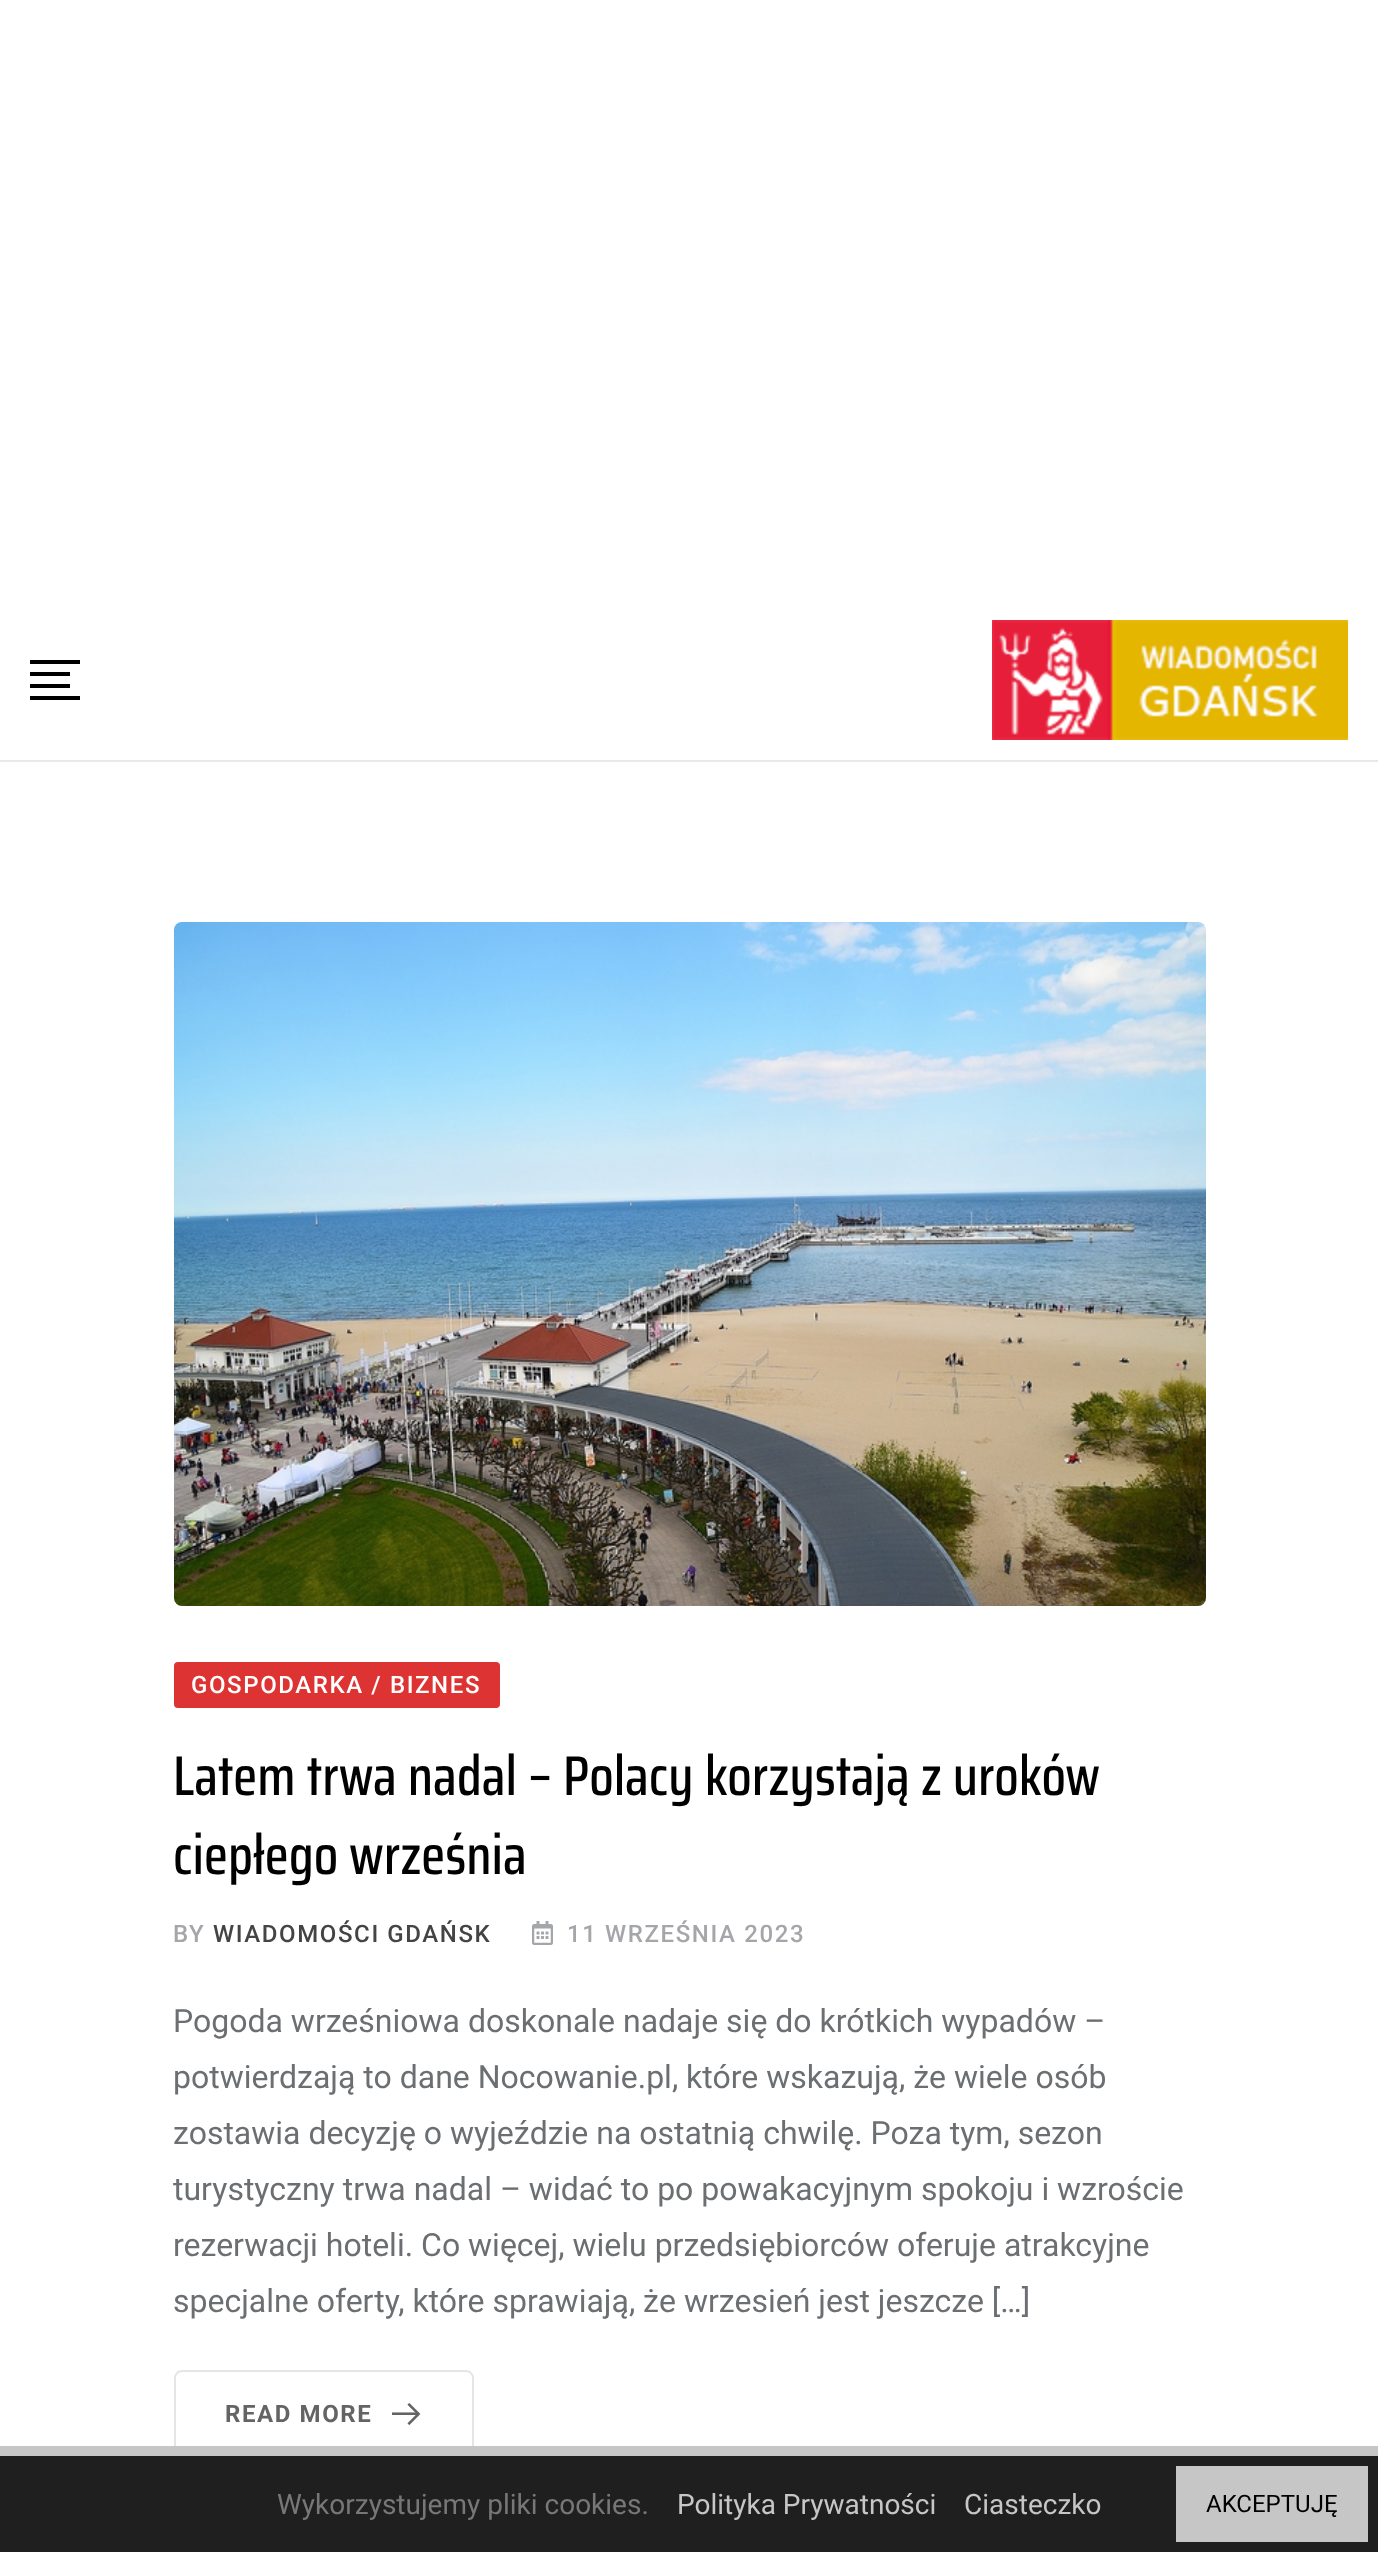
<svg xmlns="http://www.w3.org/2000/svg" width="1378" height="2552">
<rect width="100%" height="100%" fill="#fff"/>
<rect y="760" width="1378" height="2" fill="#e9e9e9"/>
<rect x="30" y="660" width="50" height="4" fill="#000"/>
<rect x="30" y="672" width="40" height="4" fill="#000"/>
<rect x="30" y="684" width="40" height="4" fill="#000"/>
<rect x="30" y="696" width="50" height="4" fill="#000"/>
<image x="992" y="620" width="356" height="120" href="media/1.png"/>
<image x="174" y="922" width="1032" height="684" href="media/2.png"/>
<rect x="174" y="1662" width="326" height="46" rx="4" fill="#d33"/>
<text x="191" y="1693" style="font-family:Roboto;font-size:24px;font-weight:500;letter-spacing:1.6px;fill:#fff">GOSPODARKA / BIZNES</text>
<text x="173" y="1795" word-spacing="0.25" style="font-family:Saira Condensed;font-size:56px;font-weight:500;fill:#000">Latem trwa nadal – Polacy korzystają z uroków</text>
<text x="173" y="1874" style="font-family:Saira Condensed;font-size:56px;font-weight:500;fill:#000">ciepłego września</text>
<text x="173" y="1942" style="font-family:Roboto;font-size:24px;font-weight:500;letter-spacing:1.6px;fill:#a5a6aa">BY</text>
<text x="213" y="1942" style="font-family:Roboto;font-size:24px;font-weight:500;letter-spacing:1.6px;fill:#444">WIADOMOŚCI GDAŃSK</text>
<image x="532" y="1921" width="21" height="24" href="media/3.png"/>
<text x="567" y="1942" style="font-family:Roboto;font-size:24px;font-weight:500;letter-spacing:1.6px;fill:#a5a6aa">11 WRZEŚNIA 2023</text>
<text x="173" y="2032" style="font-family:Roboto;font-size:32px;fill:#6c6f72">Pogoda wrześniowa doskonale nadaje się do krótkich wypadów –</text>
<text x="173" y="2088" style="font-family:Roboto;font-size:32px;fill:#6c6f72">potwierdzają to dane Nocowanie.pl, które wskazują, że wiele osób</text>
<text x="173" y="2144" style="font-family:Roboto;font-size:32px;fill:#6c6f72">zostawia decyzję o wyjeździe na ostatnią chwilę. Poza tym, sezon</text>
<text x="173" y="2200" style="font-family:Roboto;font-size:32px;fill:#6c6f72">turystyczny trwa nadal – widać to po powakacyjnym spokoju i wzroście</text>
<text x="173" y="2256" style="font-family:Roboto;font-size:32px;fill:#6c6f72">rezerwacji hoteli. Co więcej, wielu przedsiębiorców oferuje atrakcyjne</text>
<text x="173" y="2312" style="font-family:Roboto;font-size:32px;fill:#6c6f72">specjalne oferty, które sprawiają, że wrzesień jest jeszcze […]</text>
<rect x="175" y="2371" width="298" height="86" rx="7" fill="none" stroke="#e5e5e5" stroke-width="2"/>
<text x="225" y="2422" style="font-family:Roboto;font-size:24px;font-weight:bold;letter-spacing:1.6px;fill:#646464">READ MORE</text>
<image x="392" y="2403" width="29" height="22" href="media/4.png"/>
<rect y="2456" width="1378" height="96" fill="#1f1f1f"/>
<rect y="2446" width="1378" height="10" fill="#c6c6c6"/>
<text x="277" y="2514" style="font-family:Roboto;font-size:28px;fill:#777">Wykorzystujemy pliki cookies.</text>
<text x="677" y="2514" style="font-family:Roboto;font-size:28px;fill:#c6c6c6">Polityka Prywatności</text>
<text x="964" y="2514" style="font-family:Roboto;font-size:28px;fill:#c6c6c6">Ciasteczko</text>
<rect x="1176" y="2466" width="192" height="76" fill="#c6c6c6"/>
<text x="1206" y="2512" style="font-family:Roboto;font-size:24px;fill:#000">AKCEPTUJĘ</text>
</svg>
